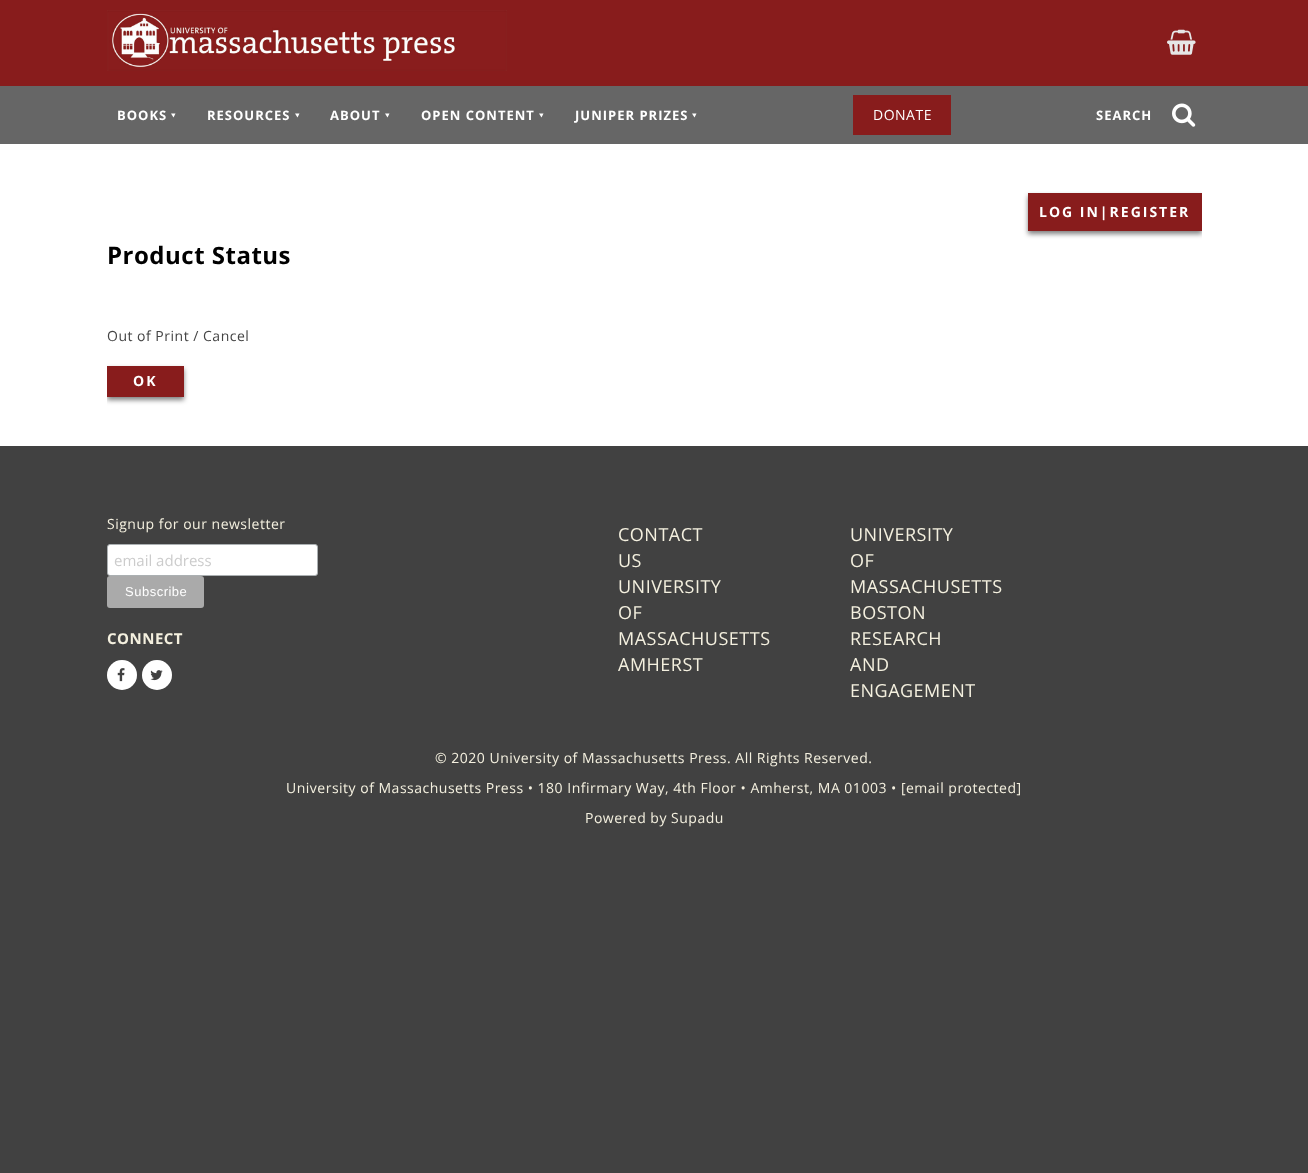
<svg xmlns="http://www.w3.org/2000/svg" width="1308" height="1173">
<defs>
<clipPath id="clip1"><rect x="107" y="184" width="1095" height="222"/></clipPath>
</defs>
<rect width="100%" height="100%" fill="#414141"/>
<rect y="144" width="1308" height="302" fill="#fff"/>
<rect width="1308" height="86" fill="#881c1c"/>
<image x="107" y="10" width="400" height="61" href="media/1.png"/>
<image x="1167" y="29" width="29" height="26" href="media/2.png"/>
<rect y="86" width="1308" height="58" fill="#666"/>
<text x="117" y="120" style="font-family:Open Sans;font-size:13px;font-weight:bold;letter-spacing:1px;fill:#fff">BOOKS</text>
<path d="M175.5 113.5l-2 4l-2.5-4z" fill="#fff"/>
<text x="207" y="120" style="font-family:Open Sans;font-size:13px;font-weight:bold;letter-spacing:1px;fill:#fff">RESOURCES</text>
<path d="M299.5 113.5l-2 4l-2.5-4z" fill="#fff"/>
<text x="330" y="120" style="font-family:Open Sans;font-size:13px;font-weight:bold;letter-spacing:1px;fill:#fff">ABOUT</text>
<path d="M389.5 113.5l-2 4l-2.5-4z" fill="#fff"/>
<text x="421" y="120" style="font-family:Open Sans;font-size:13px;font-weight:bold;letter-spacing:1px;fill:#fff">OPEN CONTENT</text>
<path d="M543.5 113.5l-2 4l-2.5-4z" fill="#fff"/>
<text x="575" y="120" style="font-family:Open Sans;font-size:13px;font-weight:bold;letter-spacing:1px;fill:#fff">JUNIPER PRIZES</text>
<path d="M696.5 113.5l-2 4l-2.5-4z" fill="#fff"/>
<rect x="853" y="95" width="98" height="40" fill="#881c1c"/>
<text x="873" y="120" style="font-family:Open Sans;font-size:14px;letter-spacing:0.5px;fill:#fff">DONATE</text>
<text x="1096" y="120" style="font-family:Open Sans;font-size:13px;font-weight:bold;letter-spacing:1px;fill:#fff">SEARCH</text>
<image x="1172" y="103" width="24" height="24" href="media/3.png"/>
<g clip-path="url(#clip1)">
<rect x="1028" y="196" width="174" height="38" fill="#00000080" filter="blur(2.5px)"/>
</g>
<rect x="1028" y="193" width="174" height="38" fill="#881c1c"/>
<text x="1039" y="217" style="font-family:Open Sans;font-size:14px;font-weight:bold;letter-spacing:2px;fill:#fff">LOG IN|REGISTER</text>
<text x="107" y="264" style="font-family:Open Sans;font-size:24px;font-weight:bold;letter-spacing:0.5px;fill:#000">Product Status</text>
<text x="107" y="341" style="font-family:Open Sans;font-size:14px;letter-spacing:0.5px;fill:#444">Out of Print / Cancel</text>
<g clip-path="url(#clip1)">
<rect x="107" y="369" width="77" height="31" fill="#00000080" filter="blur(2.5px)"/>
</g>
<rect x="107" y="366" width="77" height="31" fill="#881c1c"/>
<text x="133" y="386" style="font-family:Open Sans;font-size:14px;font-weight:bold;letter-spacing:2px;fill:#fff">OK</text>
<text x="107" y="529" style="font-family:Open Sans;font-size:14px;letter-spacing:0.5px;fill:#f4f0df">Signup for our newsletter</text>
<rect x="107.5" y="544.5" width="210" height="31" rx="2.5" fill="#fff" stroke="#abb0b2"/>
<text x="114" y="566" style="font-family:Open Sans;font-size:15px;fill:#ccc">email address</text>
<rect x="107" y="576" width="97" height="32" rx="3" fill="#aaa"/>
<text x="125" y="596" style="font-family:Liberation Sans;font-size:13px;letter-spacing:0.5px;fill:#fff">Subscribe</text>
<text x="107" y="644" style="font-family:Open Sans;font-size:15px;font-weight:bold;letter-spacing:0.5px;fill:#f4f0df">CONNECT</text>
<circle cx="122" cy="675" r="15" fill="#fff"/>
<circle cx="122" cy="675" r="14.5" fill="none" stroke="#ffffff33"/>
<image x="117" y="668" width="8" height="14" href="media/4.png"/>
<circle cx="157" cy="675" r="15" fill="#fff"/>
<circle cx="157" cy="675" r="14.5" fill="none" stroke="#ffffff33"/>
<image x="150" y="670" width="13" height="11" href="media/5.png"/>
<text x="618" y="541" style="font-family:Open Sans;font-size:18px;letter-spacing:0.5px;fill:#f4f0df">CONTACT</text>
<text x="618" y="567" style="font-family:Open Sans;font-size:18px;letter-spacing:0.5px;fill:#f4f0df">US</text>
<text x="618" y="593" style="font-family:Open Sans;font-size:18px;letter-spacing:0.5px;fill:#f4f0df">UNIVERSITY</text>
<text x="618" y="619" style="font-family:Open Sans;font-size:18px;letter-spacing:0.5px;fill:#f4f0df">OF</text>
<text x="618" y="645" style="font-family:Open Sans;font-size:18px;letter-spacing:0.5px;fill:#f4f0df">MASSACHUSETTS</text>
<text x="618" y="671" style="font-family:Open Sans;font-size:18px;letter-spacing:0.5px;fill:#f4f0df">AMHERST</text>
<text x="850" y="541" style="font-family:Open Sans;font-size:18px;letter-spacing:0.5px;fill:#f4f0df">UNIVERSITY</text>
<text x="850" y="567" style="font-family:Open Sans;font-size:18px;letter-spacing:0.5px;fill:#f4f0df">OF</text>
<text x="850" y="593" style="font-family:Open Sans;font-size:18px;letter-spacing:0.5px;fill:#f4f0df">MASSACHUSETTS</text>
<text x="850" y="619" style="font-family:Open Sans;font-size:18px;letter-spacing:0.5px;fill:#f4f0df">BOSTON</text>
<text x="850" y="645" style="font-family:Open Sans;font-size:18px;letter-spacing:0.5px;fill:#f4f0df">RESEARCH</text>
<text x="850" y="671" style="font-family:Open Sans;font-size:18px;letter-spacing:0.5px;fill:#f4f0df">AND</text>
<text x="850" y="697" style="font-family:Open Sans;font-size:18px;letter-spacing:0.5px;fill:#f4f0df">ENGAGEMENT</text>
<text x="435" y="763" style="font-family:Open Sans;font-size:14px;letter-spacing:0.5px;fill:#f4f0df">© 2020 University of Massachusetts Press. All Rights Reserved.</text>
<text x="286" y="793" style="font-family:Open Sans;font-size:14px;letter-spacing:0.5px;fill:#f4f0df">University of Massachusetts Press • 180 Infirmary Way, 4th Floor • Amherst, MA 01003 • [email protected]</text>
<text x="585" y="823" style="font-family:Open Sans;font-size:14px;letter-spacing:0.5px;fill:#f4f0df">Powered by Supadu</text>
</svg>
